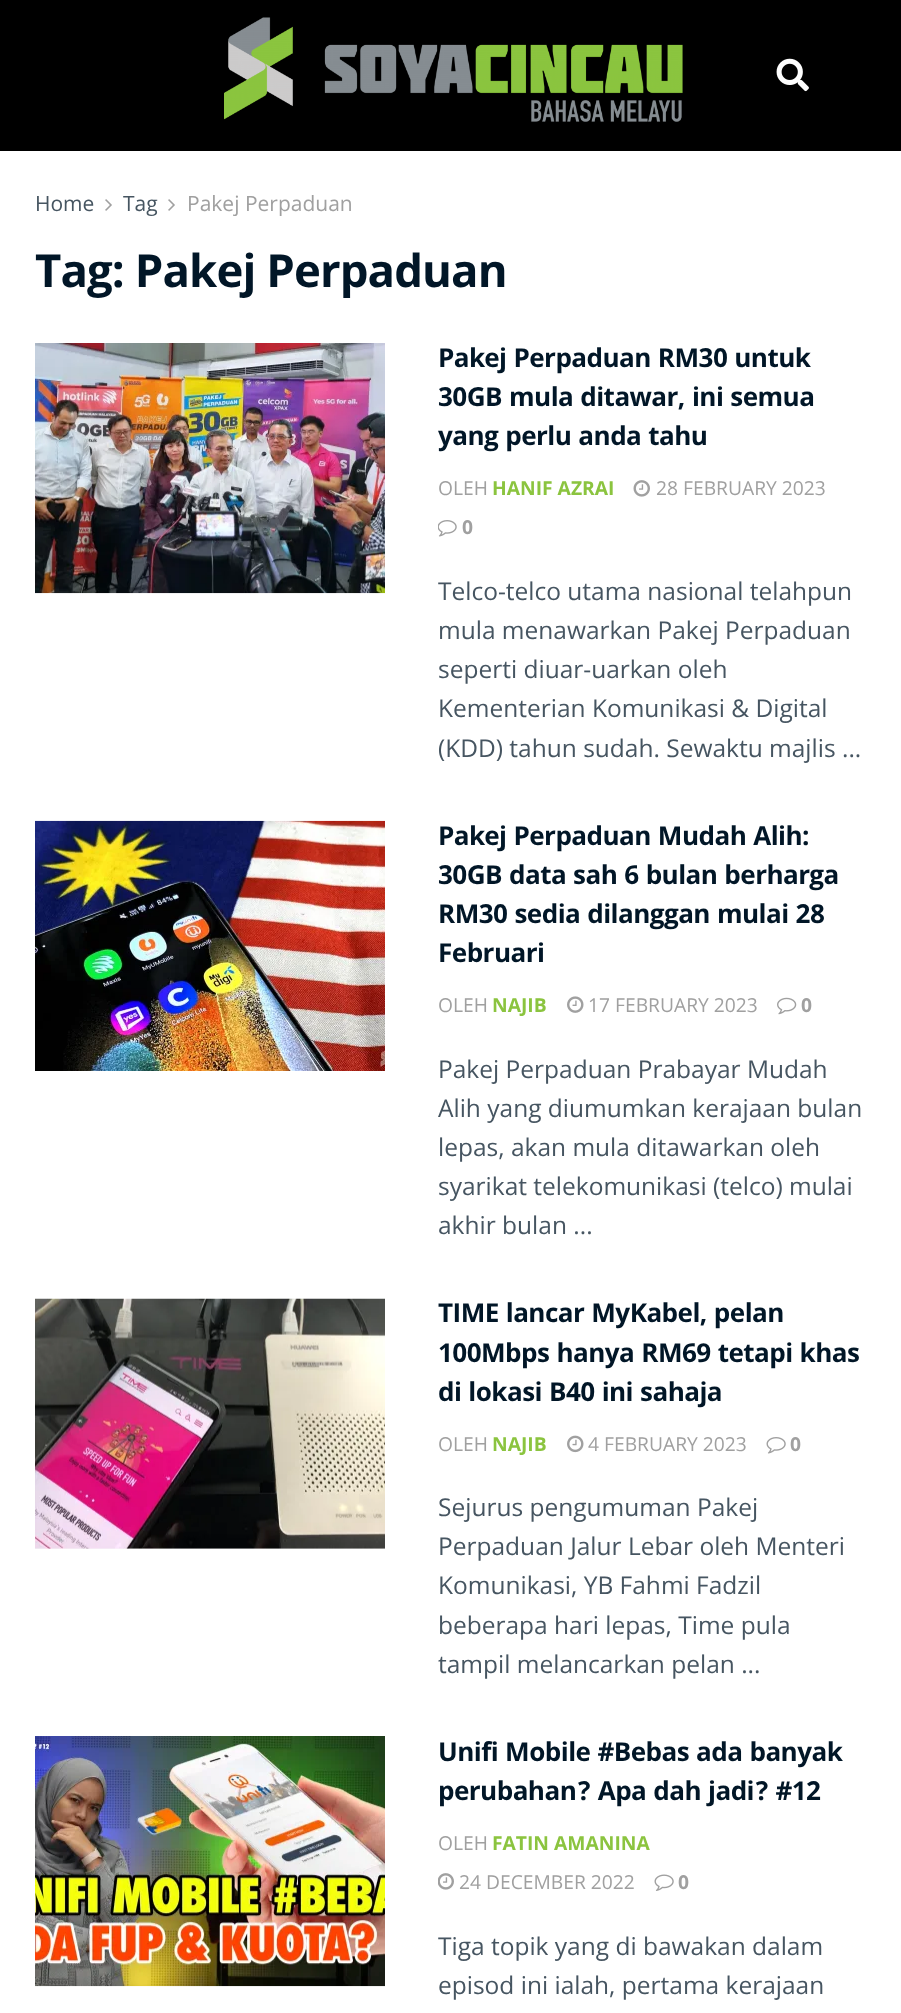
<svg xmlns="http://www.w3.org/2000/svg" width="901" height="2013">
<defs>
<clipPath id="clip1"><rect x="438" y="343" width="428" height="425"/></clipPath>
<clipPath id="clip2"><rect x="438" y="1736" width="428" height="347"/></clipPath>
</defs>
<rect width="100%" height="100%" fill="#fff"/>
<rect width="901" height="151" fill="#000"/>
<image x="224" y="17" width="459" height="105" href="media/1.png"/>
<image x="776" y="58" width="33" height="34" href="media/2.png"/>
<text x="35" y="211" style="font-family:Open Sans;font-size:21px;fill:#465561">Home</text>
<image x="105" y="199" width="7" height="12" href="media/3.png"/>
<text x="123" y="211" style="font-family:Open Sans;font-size:21px;fill:#465561">Tag</text>
<image x="168" y="199" width="7" height="12" href="media/3.png"/>
<text x="187" y="211" style="font-family:Open Sans;font-size:21px;fill:#a0a0a0">Pakej Perpaduan</text>
<text x="35" y="287" style="font-family:Open Sans;font-size:45.5px;font-weight:bold;letter-spacing:-0.9px;fill:#011627">Tag: Pakej Perpaduan</text>
<image x="35" y="343" width="350" height="251" href="media/4.png"/>
<text x="438" y="367" style="font-family:Khula;font-size:28px;font-weight:bold;letter-spacing:-0.55px;fill:#011627">Pakej Perpaduan RM30 untuk</text>
<text x="438" y="406" style="font-family:Khula;font-size:28px;font-weight:bold;letter-spacing:-0.55px;fill:#011627">30GB mula ditawar, ini semua</text>
<text x="438" y="445" style="font-family:Khula;font-size:28px;font-weight:bold;letter-spacing:-0.55px;fill:#011627">yang perlu anda tahu</text>
<text x="438" y="495" style="font-family:Open Sans;font-size:19.25px;fill:#a0a0a0">OLEH</text>
<text x="492" y="495" style="font-family:Open Sans;font-size:19.25px;font-weight:bold;fill:#8bc43f">HANIF AZRAI</text>
<image x="633" y="480" width="17" height="17" href="media/5.png"/>
<text x="656" y="495" style="font-family:Open Sans;font-size:19.25px;fill:#a0a0a0">28 FEBRUARY 2023</text>
<image x="438" y="520" width="19" height="17" href="media/6.png"/>
<text x="462" y="534" style="font-family:Open Sans;font-size:19.25px;font-weight:bold;fill:#a0a0a0">0</text>
<g clip-path="url(#clip1)">
<text x="438" y="600" style="font-family:Open Sans;font-size:24.5px;fill:#465561">Telco-telco utama nasional telahpun</text>
</g>
<text x="438" y="639" style="font-family:Open Sans;font-size:24.5px;fill:#465561">mula menawarkan Pakej Perpaduan</text>
<text x="438" y="678" style="font-family:Open Sans;font-size:24.5px;fill:#465561">seperti diuar-uarkan oleh</text>
<text x="438" y="717" style="font-family:Open Sans;font-size:24.5px;fill:#465561">Kementerian Komunikasi &amp; Digital</text>
<text x="438" y="757" style="font-family:Open Sans;font-size:24.5px;fill:#465561">(KDD) tahun sudah. Sewaktu majlis ...</text>
<image x="35" y="820" width="350" height="251" href="media/7.png"/>
<text x="438" y="845" style="font-family:Khula;font-size:28px;font-weight:bold;letter-spacing:-0.55px;fill:#011627">Pakej Perpaduan Mudah Alih:</text>
<text x="438" y="884" style="font-family:Khula;font-size:28px;font-weight:bold;letter-spacing:-0.55px;fill:#011627">30GB data sah 6 bulan berharga</text>
<text x="438" y="923" style="font-family:Khula;font-size:28px;font-weight:bold;letter-spacing:-0.55px;fill:#011627">RM30 sedia dilanggan mulai 28</text>
<text x="438" y="962" style="font-family:Khula;font-size:28px;font-weight:bold;letter-spacing:-0.55px;fill:#011627">Februari</text>
<text x="438" y="1012" style="font-family:Open Sans;font-size:19.25px;fill:#a0a0a0">OLEH</text>
<text x="492" y="1012" style="font-family:Open Sans;font-size:19.25px;font-weight:bold;fill:#8bc43f">NAJIB</text>
<image x="567" y="996" width="17" height="17" href="media/8.png"/>
<text x="588" y="1012" style="font-family:Open Sans;font-size:19.25px;fill:#a0a0a0">17 FEBRUARY 2023</text>
<image x="777" y="997" width="20" height="18" href="media/9.png"/>
<text x="801" y="1012" style="font-family:Open Sans;font-size:19.25px;font-weight:bold;fill:#a0a0a0">0</text>
<text x="438" y="1078" style="font-family:Open Sans;font-size:24.5px;fill:#465561">Pakej Perpaduan Prabayar Mudah</text>
<text x="438" y="1117" style="font-family:Open Sans;font-size:24.5px;fill:#465561">Alih yang diumumkan kerajaan bulan</text>
<text x="438" y="1156" style="font-family:Open Sans;font-size:24.5px;fill:#465561">lepas, akan mula ditawarkan oleh</text>
<text x="438" y="1195" style="font-family:Open Sans;font-size:24.5px;fill:#465561">syarikat telekomunikasi (telco) mulai</text>
<text x="438" y="1234" style="font-family:Open Sans;font-size:24.5px;fill:#465561">akhir bulan ...</text>
<rect x="35" y="1548" width="350" height="1" fill="#f7f7f7"/>
<image x="277" y="1298" width="69" height="251" href="media/11.png"/>
<image x="35" y="1298" width="350" height="251" href="media/10.png"/>
<text x="438" y="1322" style="font-family:Khula;font-size:28px;font-weight:bold;letter-spacing:-0.55px;fill:#011627">TIME lancar MyKabel, pelan</text>
<text x="438" y="1362" style="font-family:Khula;font-size:28px;font-weight:bold;letter-spacing:-0.55px;fill:#011627">100Mbps hanya RM69 tetapi khas</text>
<text x="438" y="1401" style="font-family:Khula;font-size:28px;font-weight:bold;letter-spacing:-0.55px;fill:#011627">di lokasi B40 ini sahaja</text>
<text x="438" y="1451" style="font-family:Open Sans;font-size:19.25px;fill:#a0a0a0">OLEH</text>
<text x="492" y="1451" style="font-family:Open Sans;font-size:19.25px;font-weight:bold;fill:#8bc43f">NAJIB</text>
<image x="567" y="1435" width="17" height="18" href="media/12.png"/>
<text x="588" y="1451" style="font-family:Open Sans;font-size:19.25px;fill:#a0a0a0">4 FEBRUARY 2023</text>
<image x="766" y="1437" width="20" height="17" href="media/13.png"/>
<text x="790" y="1451" style="font-family:Open Sans;font-size:19.25px;font-weight:bold;fill:#a0a0a0">0</text>
<text x="438" y="1516" style="font-family:Open Sans;font-size:24.5px;fill:#465561">Sejurus pengumuman Pakej</text>
<text x="438" y="1555" style="font-family:Open Sans;font-size:24.5px;fill:#465561">Perpaduan Jalur Lebar oleh Menteri</text>
<text x="438" y="1594" style="font-family:Open Sans;font-size:24.5px;fill:#465561">Komunikasi, YB Fahmi Fadzil</text>
<text x="438" y="1634" style="font-family:Open Sans;font-size:24.5px;fill:#465561">beberapa hari lepas, Time pula</text>
<text x="438" y="1673" style="font-family:Open Sans;font-size:24.5px;fill:#465561">tampil melancarkan pelan ...</text>
<image x="35" y="1736" width="350" height="251" href="media/14.png"/>
<text x="438" y="1761" style="font-family:Khula;font-size:28px;font-weight:bold;letter-spacing:-0.55px;fill:#011627">Unifi Mobile #Bebas ada banyak</text>
<text x="438" y="1800" style="font-family:Khula;font-size:28px;font-weight:bold;letter-spacing:-0.55px;fill:#011627">perubahan? Apa dah jadi? #12</text>
<text x="438" y="1850" style="font-family:Open Sans;font-size:19.25px;fill:#a0a0a0">OLEH</text>
<text x="492" y="1850" style="font-family:Open Sans;font-size:19.25px;font-weight:bold;fill:#8bc43f">FATIN AMANINA</text>
<image x="438" y="1873" width="16" height="17" href="media/15.png"/>
<text x="459" y="1889" style="font-family:Open Sans;font-size:19.25px;fill:#a0a0a0">24 DECEMBER 2022</text>
<image x="654" y="1874" width="20" height="17" href="media/16.png"/>
<text x="678" y="1889" style="font-family:Open Sans;font-size:19.25px;font-weight:bold;fill:#a0a0a0">0</text>
<g clip-path="url(#clip2)">
<text x="438" y="1955" style="font-family:Open Sans;font-size:24.5px;fill:#465561">Tiga topik yang di bawakan dalam</text>
</g>
<text x="438" y="1994" style="font-family:Open Sans;font-size:24.5px;fill:#465561">episod ini ialah, pertama kerajaan</text>
</svg>
